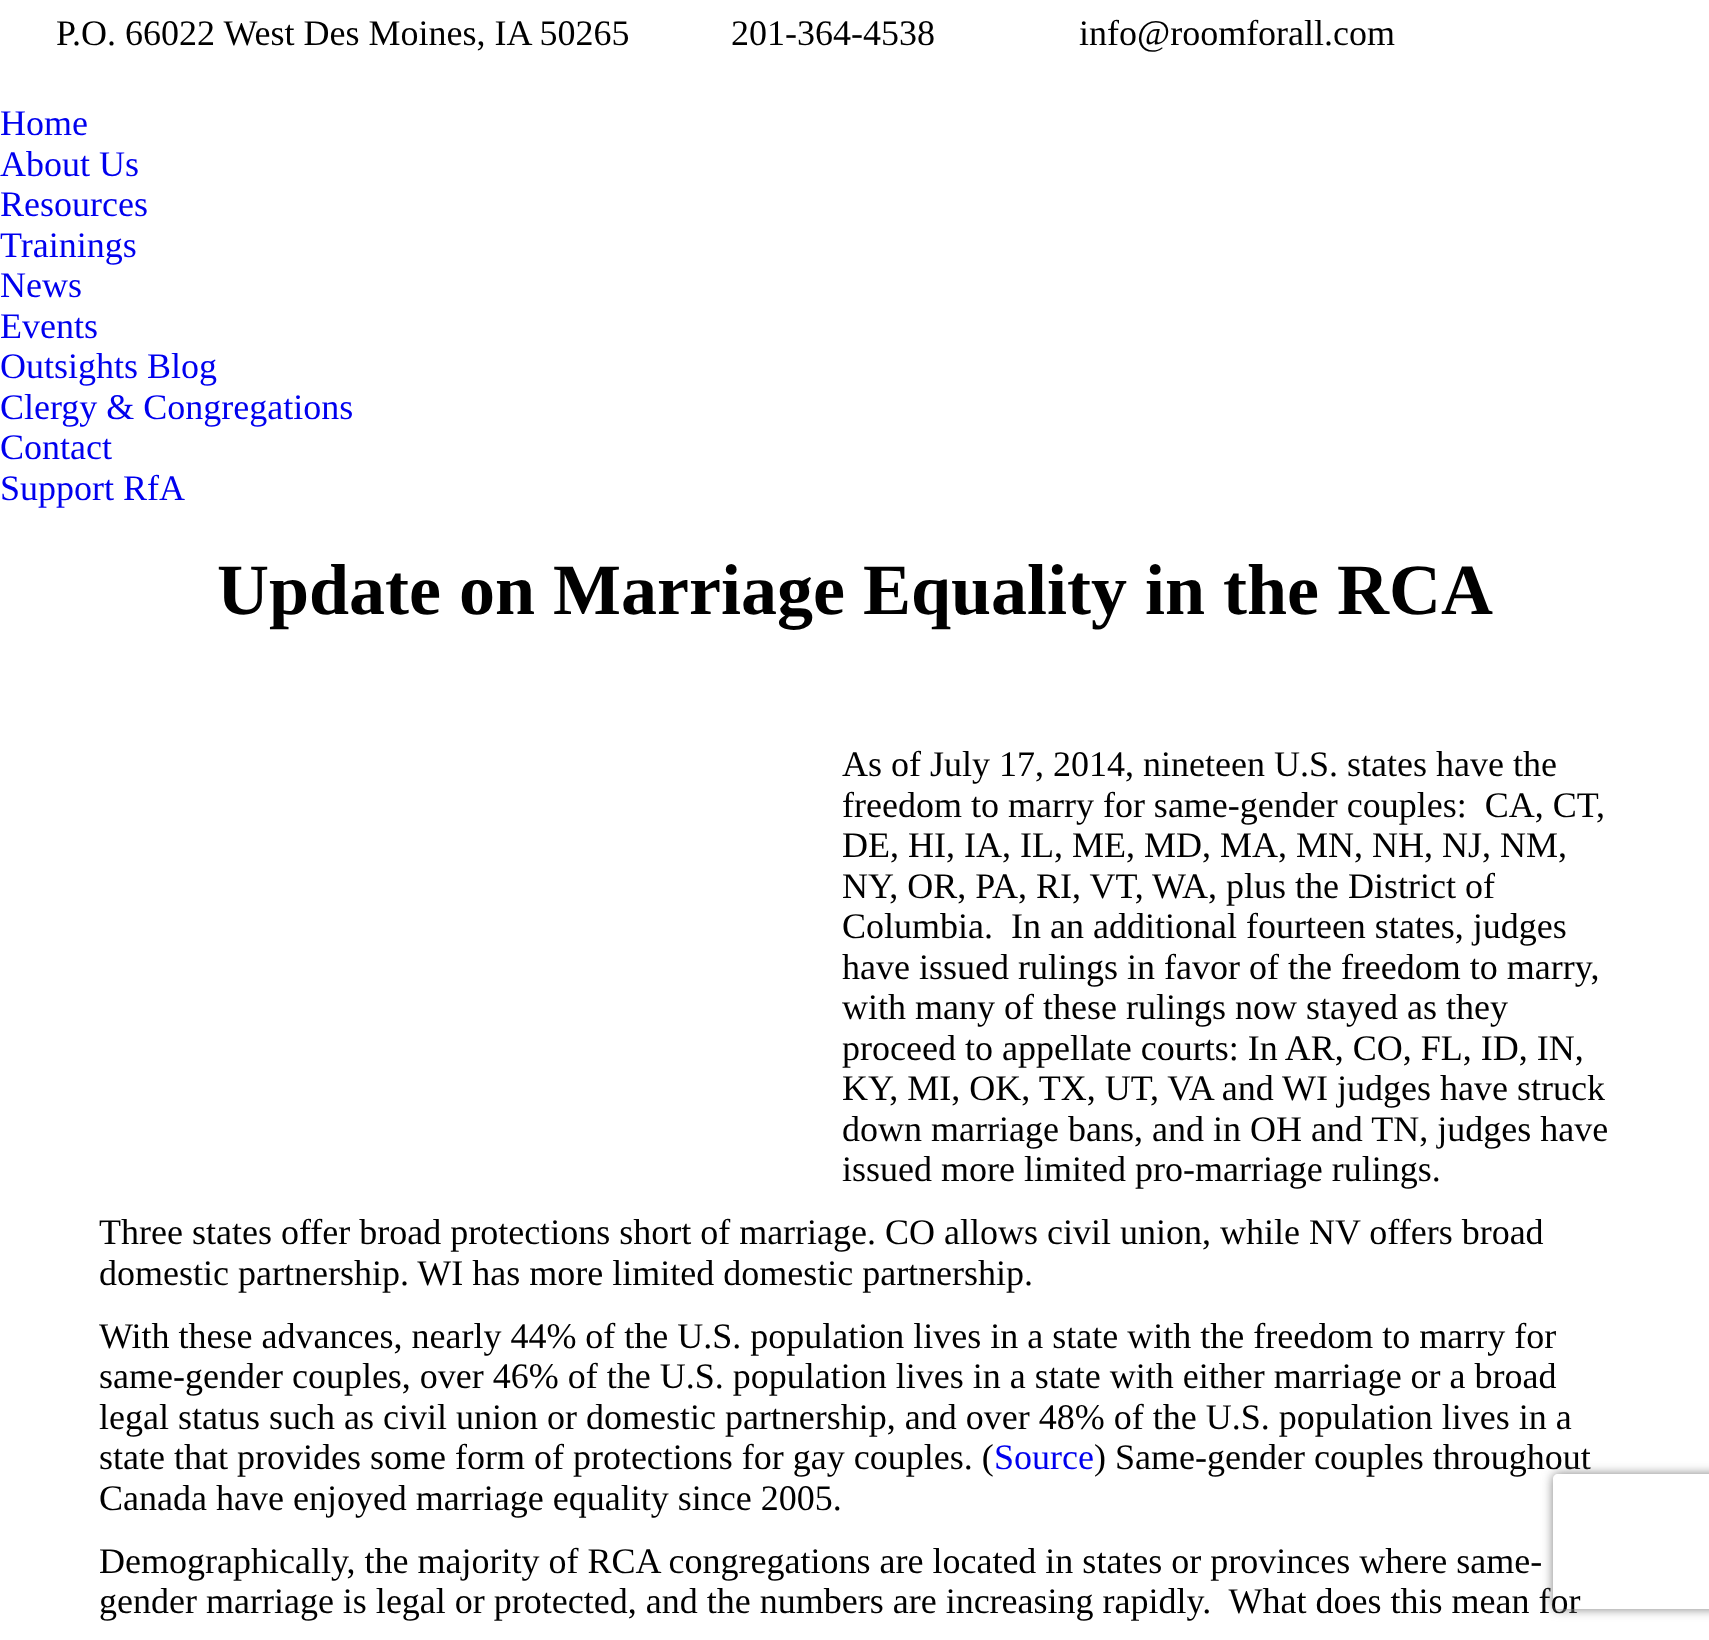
<svg xmlns="http://www.w3.org/2000/svg" width="1709" height="1640">
<defs>
<clipPath id="clip1"><path d="M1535 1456h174v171h-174zm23 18h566c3 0 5 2 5 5v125c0 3-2 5-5 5h-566c-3 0-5-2-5-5v-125c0-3 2-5 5-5z" clip-rule="evenodd"/></clipPath>
</defs>
<rect width="100%" height="100%" fill="#fff"/>
<text x="56" y="45" style="font-family:Liberation Serif;font-size:36px;fill:#000">P.O. 66022 West Des Moines, IA 50265</text>
<text x="731" y="45" style="font-family:Liberation Serif;font-size:36px;fill:#000">201-364-4538</text>
<text x="1079" y="45" style="font-family:Liberation Serif;font-size:36px;fill:#000">info@roomforall.com</text>
<text x="0" y="135" style="font-family:Liberation Serif;font-size:36px;fill:#00e">Home</text>
<text x="0" y="176" style="font-family:Liberation Serif;font-size:36px;fill:#00e">About Us</text>
<text x="0" y="216" style="font-family:Liberation Serif;font-size:36px;fill:#00e">Resources</text>
<text x="0" y="257" style="font-family:Liberation Serif;font-size:36px;fill:#00e">Trainings</text>
<text x="0" y="297" style="font-family:Liberation Serif;font-size:36px;fill:#00e">News</text>
<text x="0" y="338" style="font-family:Liberation Serif;font-size:36px;fill:#00e">Events</text>
<text x="0" y="378" style="font-family:Liberation Serif;font-size:36px;fill:#00e">Outsights Blog</text>
<text x="0" y="419" style="font-family:Liberation Serif;font-size:36px;fill:#00e">Clergy &amp; Congregations</text>
<text x="0" y="459" style="font-family:Liberation Serif;font-size:36px;fill:#00e">Contact</text>
<text x="0" y="500" style="font-family:Liberation Serif;font-size:36px;fill:#00e">Support RfA</text>
<text x="217" y="614" style="font-family:Liberation Serif;font-size:72px;font-weight:bold;fill:#000">Update on Marriage Equality in the RCA</text>
<text x="842" y="776" style="font-family:Liberation Serif;font-size:36px;fill:#000">As of July 17, 2014, nineteen U.S. states have the</text>
<text x="842" y="817" style="font-family:Liberation Serif;font-size:36px;fill:#000" xml:space="preserve">freedom to marry for same-gender couples:  CA, CT,</text>
<text x="842" y="857" style="font-family:Liberation Serif;font-size:36px;fill:#000">DE, HI, IA, IL, ME, MD, MA, MN, NH, NJ, NM,</text>
<text x="842" y="898" style="font-family:Liberation Serif;font-size:36px;fill:#000">NY, OR, PA, RI, VT, WA, plus the District of</text>
<text x="842" y="938" style="font-family:Liberation Serif;font-size:36px;fill:#000" xml:space="preserve">Columbia.  In an additional fourteen states, judges</text>
<text x="842" y="979" style="font-family:Liberation Serif;font-size:36px;fill:#000">have issued rulings in favor of the freedom to marry,</text>
<text x="842" y="1019" style="font-family:Liberation Serif;font-size:36px;fill:#000">with many of these rulings now stayed as they</text>
<text x="842" y="1060" style="font-family:Liberation Serif;font-size:36px;fill:#000">proceed to appellate courts: In AR, CO, FL, ID, IN,</text>
<text x="842" y="1100" style="font-family:Liberation Serif;font-size:36px;fill:#000">KY, MI, OK, TX, UT, VA and WI judges have struck</text>
<text x="842" y="1141" style="font-family:Liberation Serif;font-size:36px;fill:#000">down marriage bans, and in OH and TN, judges have</text>
<text x="842" y="1181" style="font-family:Liberation Serif;font-size:36px;fill:#000">issued more limited pro-marriage rulings.</text>
<text x="99" y="1244" style="font-family:Liberation Serif;font-size:36px;fill:#000">Three states offer broad protections short of marriage. CO allows civil union, while NV offers broad</text>
<text x="99" y="1285" style="font-family:Liberation Serif;font-size:36px;fill:#000">domestic partnership. WI has more limited domestic partnership.</text>
<text x="99" y="1348" style="font-family:Liberation Serif;font-size:36px;fill:#000">With these advances, nearly 44% of the U.S. population lives in a state with the freedom to marry for</text>
<text x="99" y="1388" style="font-family:Liberation Serif;font-size:36px;fill:#000">same-gender couples, over 46% of the U.S. population lives in a state with either marriage or a broad</text>
<text x="99" y="1429" style="font-family:Liberation Serif;font-size:36px;fill:#000">legal status such as civil union or domestic partnership, and over 48% of the U.S. population lives in a</text>
<text x="99" y="1469" style="font-family:Liberation Serif;font-size:36px;fill:#000">state that provides some form of protections for gay couples. (</text>
<text x="994" y="1469" style="font-family:Liberation Serif;font-size:36px;fill:#00e">Source</text>
<text x="1094" y="1469" style="font-family:Liberation Serif;font-size:36px;fill:#000">) Same-gender couples throughout</text>
<text x="99" y="1510" style="font-family:Liberation Serif;font-size:36px;fill:#000">Canada have enjoyed marriage equality since 2005.</text>
<text x="99" y="1573" style="font-family:Liberation Serif;font-size:36px;fill:#000">Demographically, the majority of RCA congregations are located in states or provinces where same-</text>
<text x="99" y="1613" style="font-family:Liberation Serif;font-size:36px;fill:#000" xml:space="preserve">gender marriage is legal or protected, and the numbers are increasing rapidly.  What does this mean for</text>
<g clip-path="url(#clip1)">
<rect x="1553" y="1474" width="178" height="135" rx="5" fill="#808080" filter="blur(5.5px)"/>
</g>
</svg>
